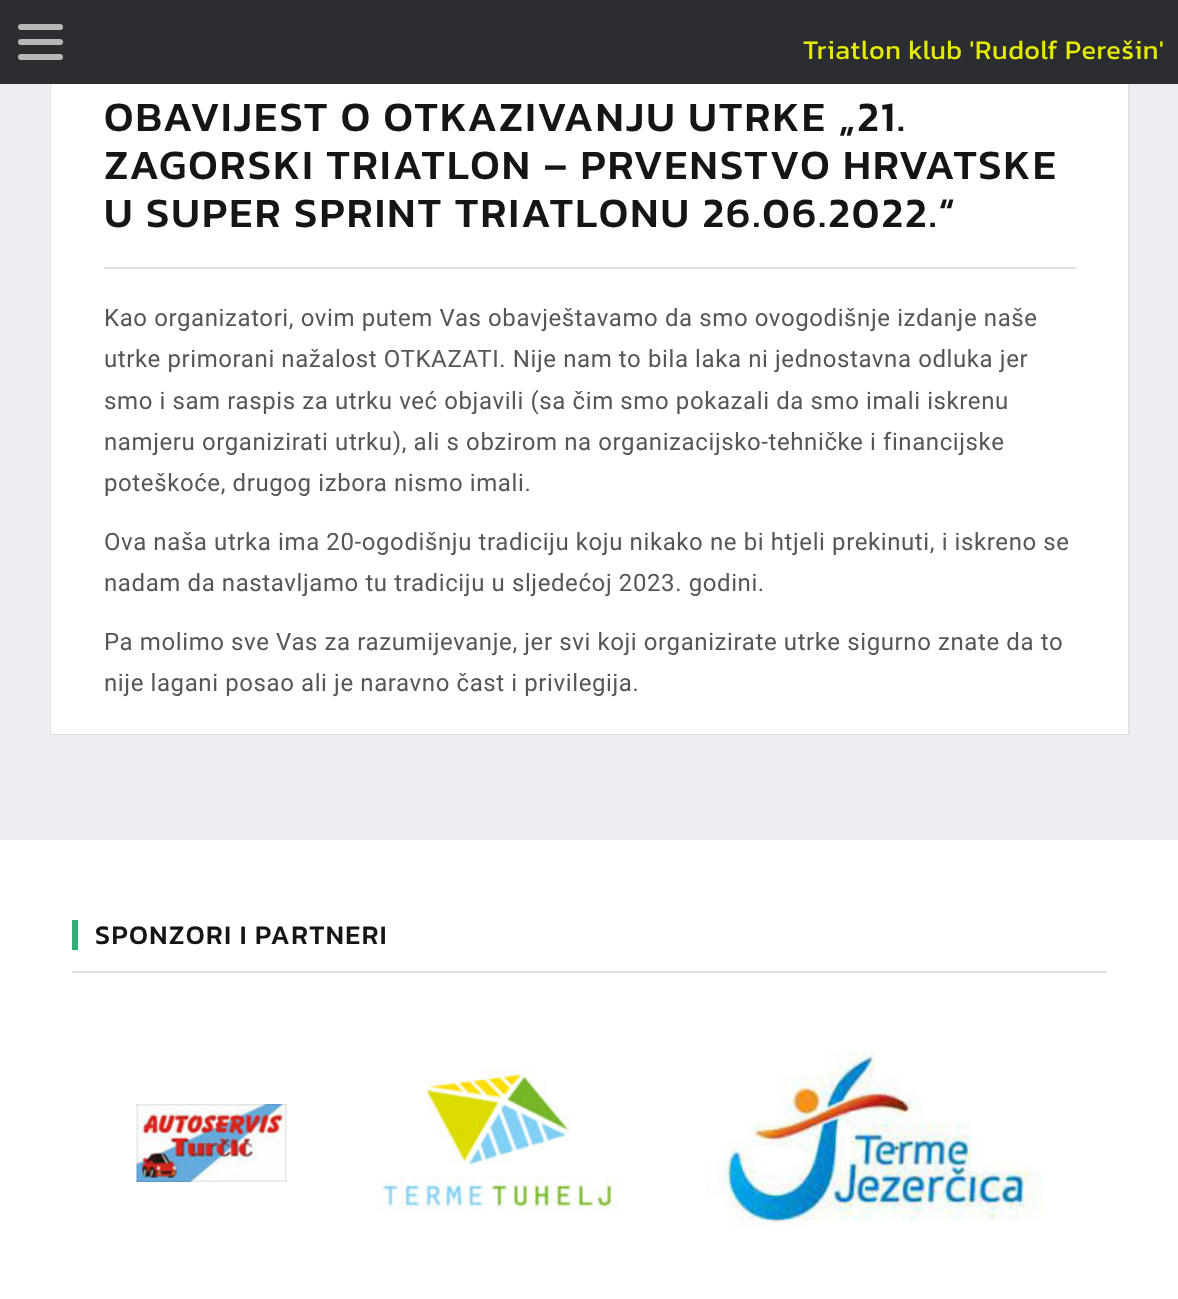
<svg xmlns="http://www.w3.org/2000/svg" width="1178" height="1299">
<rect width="100%" height="100%" fill="#fff"/>
<rect y="84" width="1178" height="756" fill="#edeff4"/>
<rect x="51" y="61" width="1078" height="673" fill="none" stroke="#e1e1e1" stroke-width="2"/>
<rect width="1178" height="84" fill="#2c2d31"/>
<rect x="18" y="39" width="45" height="6" rx="3" fill="#b7b7b7"/>
<rect x="18" y="24" width="45" height="6" rx="3" fill="#b7b7b7"/>
<rect x="18" y="54" width="45" height="6" rx="3" fill="#b7b7b7"/>
<text x="803" y="59" style="font-family:Kanit;font-size:27px;letter-spacing:0.6px;fill:#e5eb00">Triatlon klub 'Rudolf Perešin'</text>
<rect x="51" y="84" width="1077" height="650" fill="#fff"/>
<text x="104" y="131" style="font-family:Kanit;font-size:42px;font-weight:500;letter-spacing:2.1px;fill:#151515">OBAVIJEST O OTKAZIVANJU UTRKE „21.</text>
<text x="104" y="179" style="font-family:Kanit;font-size:42px;font-weight:500;letter-spacing:2.1px;fill:#151515">ZAGORSKI TRIATLON – PRVENSTVO HRVATSKE</text>
<text x="104" y="227" style="font-family:Kanit;font-size:42px;font-weight:500;letter-spacing:2.1px;fill:#151515">U SUPER SPRINT TRIATLONU 26.06.2022.“</text>
<rect x="104" y="267" width="972" height="2" fill="#e1e1e1"/>
<text x="104" y="326" style="font-family:Roboto;font-size:24px;letter-spacing:0.6px;fill:#565656">Kao organizatori, ovim putem Vas obavještavamo da smo ovogodišnje izdanje naše</text>
<text x="104" y="367" style="font-family:Roboto;font-size:24px;letter-spacing:0.6px;fill:#565656">utrke primorani nažalost OTKAZATI. Nije nam to bila laka ni jednostavna odluka jer</text>
<text x="104" y="409" style="font-family:Roboto;font-size:24px;letter-spacing:0.6px;fill:#565656">smo i sam raspis za utrku već objavili (sa čim smo pokazali da smo imali iskrenu</text>
<text x="104" y="450" style="font-family:Roboto;font-size:24px;letter-spacing:0.6px;fill:#565656">namjeru organizirati utrku), ali s obzirom na organizacijsko-tehničke i financijske</text>
<text x="104" y="491" style="font-family:Roboto;font-size:24px;letter-spacing:0.6px;fill:#565656">poteškoće, drugog izbora nismo imali.</text>
<text x="104" y="550" style="font-family:Roboto;font-size:24px;letter-spacing:0.6px;fill:#565656">Ova naša utrka ima 20-ogodišnju tradiciju koju nikako ne bi htjeli prekinuti, i iskreno se</text>
<text x="104" y="591" style="font-family:Roboto;font-size:24px;letter-spacing:0.6px;fill:#565656">nadam da nastavljamo tu tradiciju u sljedećoj 2023. godini.</text>
<text x="104" y="650" style="font-family:Roboto;font-size:24px;letter-spacing:0.6px;fill:#565656">Pa molimo sve Vas za razumijevanje, jer svi koji organizirate utrke sigurno znate da to</text>
<text x="104" y="691" style="font-family:Roboto;font-size:24px;letter-spacing:0.6px;fill:#565656">nije lagani posao ali je naravno čast i privilegija.</text>
<rect x="72" y="971" width="1035" height="2" fill="#e1e1e1"/>
<rect x="72" y="920" width="6" height="30" fill="#35ad79"/>
<text x="95" y="944" style="font-family:Kanit;font-size:27px;font-weight:500;letter-spacing:1.4px;fill:#151515">SPONZORI I PARTNERI</text>
<image x="136" y="1104" width="151" height="78" href="media/1.png"/>
<image x="378" y="1068" width="240" height="145" href="media/2.png"/>
<image x="706" y="1051" width="337" height="179" href="media/3.png"/>
</svg>
